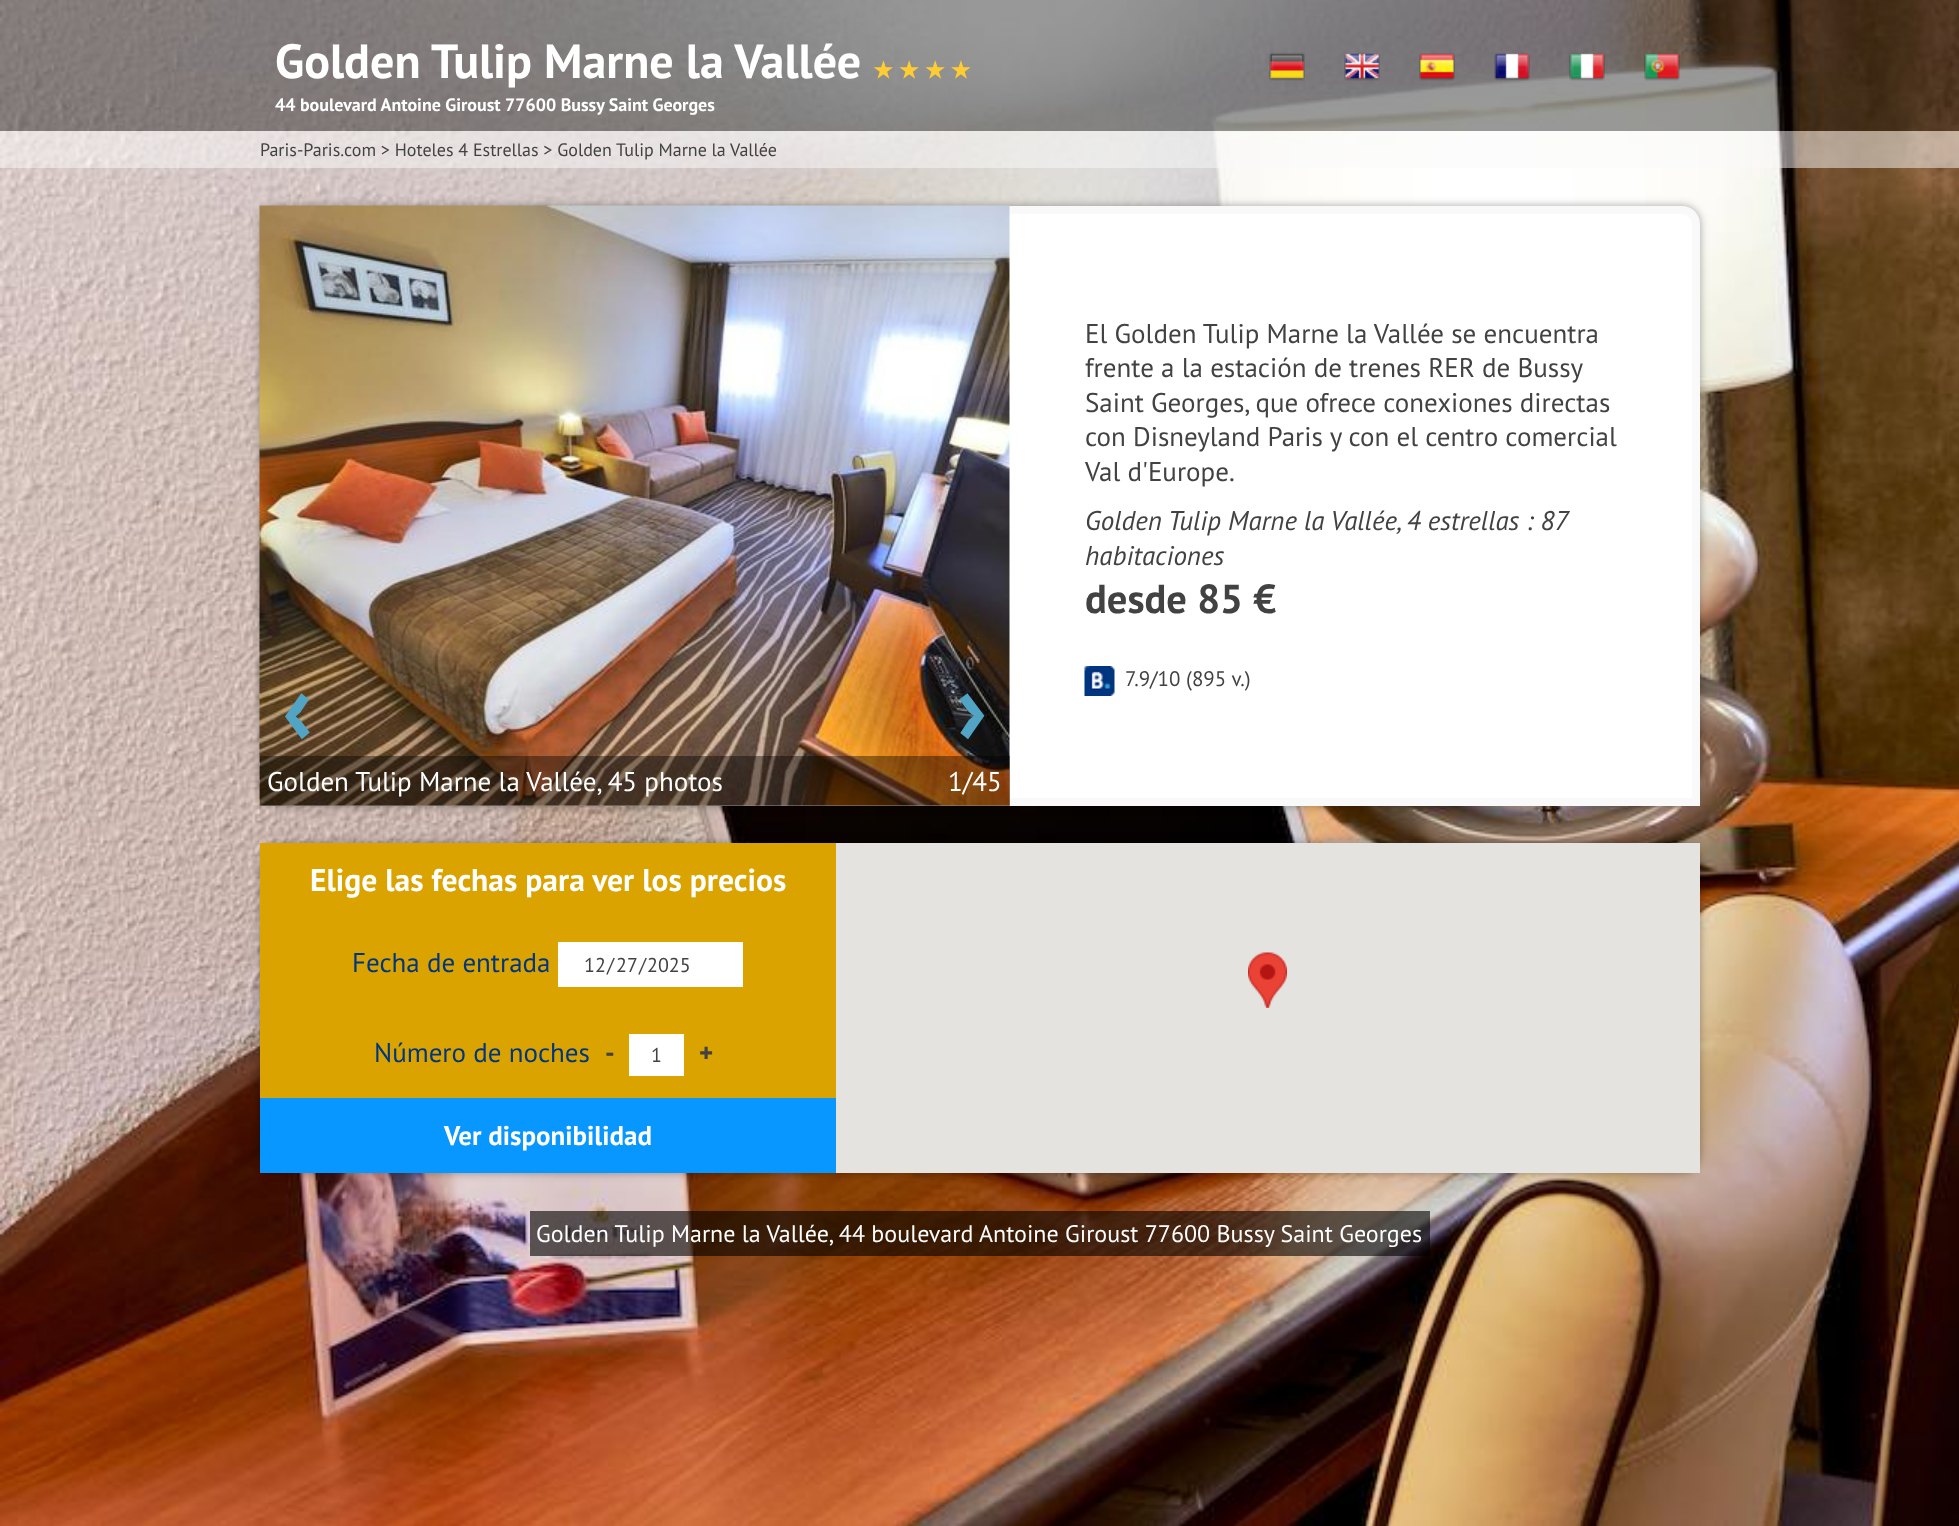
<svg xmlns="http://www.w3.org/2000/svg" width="1959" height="1526">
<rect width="100%" height="100%" fill="#fff"/>
<image x="0" y="0" width="1959" height="1526" href="media/1.png"/>
<rect width="1959" height="131" fill="#00000066"/>
<text x="275" y="78" style="font-family:PT Sans;font-size:48px;font-weight:bold;fill:#fff">Golden Tulip Marne la Vallée</text>
<text x="873" y="78" word-spacing="-1.5" style="font-family:DejaVu Sans;font-size:22.5px;font-weight:bold;fill:#fc3">★ ★ ★ ★</text>
<text x="275" y="111" style="font-family:PT Sans;font-size:18px;font-weight:bold;fill:#fff">44 boulevard Antoine Giroust 77600 Bussy Saint Georges</text>
<image x="1269" y="52" width="36" height="29" href="media/2.png"/>
<image x="1344" y="53" width="36" height="28" href="media/3.png"/>
<image x="1419" y="53" width="36" height="28" href="media/4.png"/>
<image x="1494" y="53" width="36" height="28" href="media/5.png"/>
<image x="1569" y="53" width="36" height="28" href="media/6.png"/>
<image x="1644" y="53" width="36" height="28" href="media/7.png"/>
<rect y="131" width="1959" height="37" fill="#fafafa80"/>
<text x="260" y="156" style="font-family:PT Sans;font-size:18px;fill:#424242">Paris-Paris.com &gt; Hoteles 4 Estrellas &gt; Golden Tulip Marne la Vallée</text>
<rect x="260" y="206" width="1440" height="600" rx="18" fill="#00000059" filter="blur(4px)"/>
<path d="M260 206h1422c10 0 18 8 18 18v582h-1440z" fill="#fff"/>
<path d="M264 210h1418c7.5 0 14 6.5 14 14v578h-1432z" fill="none" stroke="#c8c8c81a" stroke-width="8"/>
<text x="1085" y="343" style="font-family:PT Sans;font-size:27px;fill:#424242">El Golden Tulip Marne la Vallée se encuentra</text>
<text x="1085" y="377" style="font-family:PT Sans;font-size:27px;fill:#424242">frente a la estación de trenes RER de Bussy</text>
<text x="1085" y="412" style="font-family:PT Sans;font-size:27px;fill:#424242">Saint Georges, que ofrece conexiones directas</text>
<text x="1085" y="446" style="font-family:PT Sans;font-size:27px;fill:#424242">con Disneyland Paris y con el centro comercial</text>
<text x="1085" y="481" style="font-family:PT Sans;font-size:27px;fill:#424242">Val d'Europe.</text>
<text x="1085" y="530" word-spacing="-0.25" style="font-family:PT Sans;font-size:27px;font-style:italic;fill:#424242">Golden Tulip Marne la Vallée, 4 estrellas : 87</text>
<text x="1085" y="565" style="font-family:PT Sans;font-size:27px;font-style:italic;fill:#424242">habitaciones</text>
<text x="1085" y="613" style="font-family:PT Sans;font-size:40.5px;font-weight:bold;fill:#424242">desde 85 €</text>
<image x="1084" y="666" width="31" height="30" href="media/8.png"/>
<text x="1125" y="686" style="font-family:PT Sans;font-size:21px;fill:#424242">7.9/10 (895 v.)</text>
<image x="259" y="205" width="751" height="601" href="media/9.png"/>
<text x="282" y="743" style="font-family:PT Sans;font-size:102px;font-weight:bold;fill:#51a4c4">‹</text>
<text x="956" y="743" style="font-family:PT Sans;font-size:102px;font-weight:bold;fill:#51a4c4">›</text>
<rect x="260" y="756" width="750" height="50" fill="#00000066"/>
<text x="267" y="791" style="font-family:PT Sans;font-size:27px;fill:#fff">Golden Tulip Marne la Vallée, 45 photos</text>
<text x="948" y="791" style="font-family:PT Sans;font-size:27px;fill:#fff">1/45</text>
<rect x="260" y="843" width="1440" height="330" rx="18" fill="#00000059" filter="blur(4px)"/>
<rect x="260" y="843" width="576" height="255" fill="#daa300"/>
<text x="310" y="891" style="font-family:PT Sans;font-size:31.6px;font-weight:bold;fill:#fff">Elige las fechas para ver los precios</text>
<text x="352" y="972" style="font-family:PT Sans;font-size:27px;fill:#003580">Fecha de entrada</text>
<rect x="558" y="942" width="185" height="45" fill="#fff"/>
<text x="584" y="972" style="font-family:PT Sans;font-size:20px;fill:#424242">12</text>
<text x="607" y="972" style="font-family:PT Sans;font-size:20px;fill:#424242">/</text>
<text x="616" y="972" style="font-family:PT Sans;font-size:20px;fill:#424242">27</text>
<text x="639" y="972" style="font-family:PT Sans;font-size:20px;fill:#424242">/</text>
<text x="647" y="972" style="font-family:PT Sans;font-size:20px;fill:#424242">2025</text>
<text x="374" y="1062" style="font-family:PT Sans;font-size:27px;fill:#003580">Número de noches</text>
<text x="605" y="1062" style="font-family:PT Sans;font-size:27px;font-weight:bold;fill:#424242">-</text>
<rect x="629" y="1034" width="55" height="42" fill="#fff"/>
<text x="651" y="1062" style="font-family:PT Sans;font-size:20px;fill:#424242">1</text>
<text x="699" y="1062" style="font-family:PT Sans;font-size:27px;font-weight:bold;fill:#424242">+</text>
<rect x="260" y="1098" width="576" height="75" fill="#0896ff"/>
<text x="444" y="1145" style="font-family:PT Sans;font-size:27px;font-weight:bold;fill:#fff">Ver disponibilidad</text>
<rect x="836" y="843" width="864" height="330" fill="#e5e3df"/>
<image x="1248" y="952" width="39" height="56" href="media/10.png"/>
<rect x="530" y="1211" width="900" height="45" fill="#00000099"/>
<text x="536" y="1242" style="font-family:PT Sans;font-size:24px;fill:#fff">Golden Tulip Marne la Vallée, 44 boulevard Antoine Giroust 77600 Bussy Saint Georges</text>
</svg>
